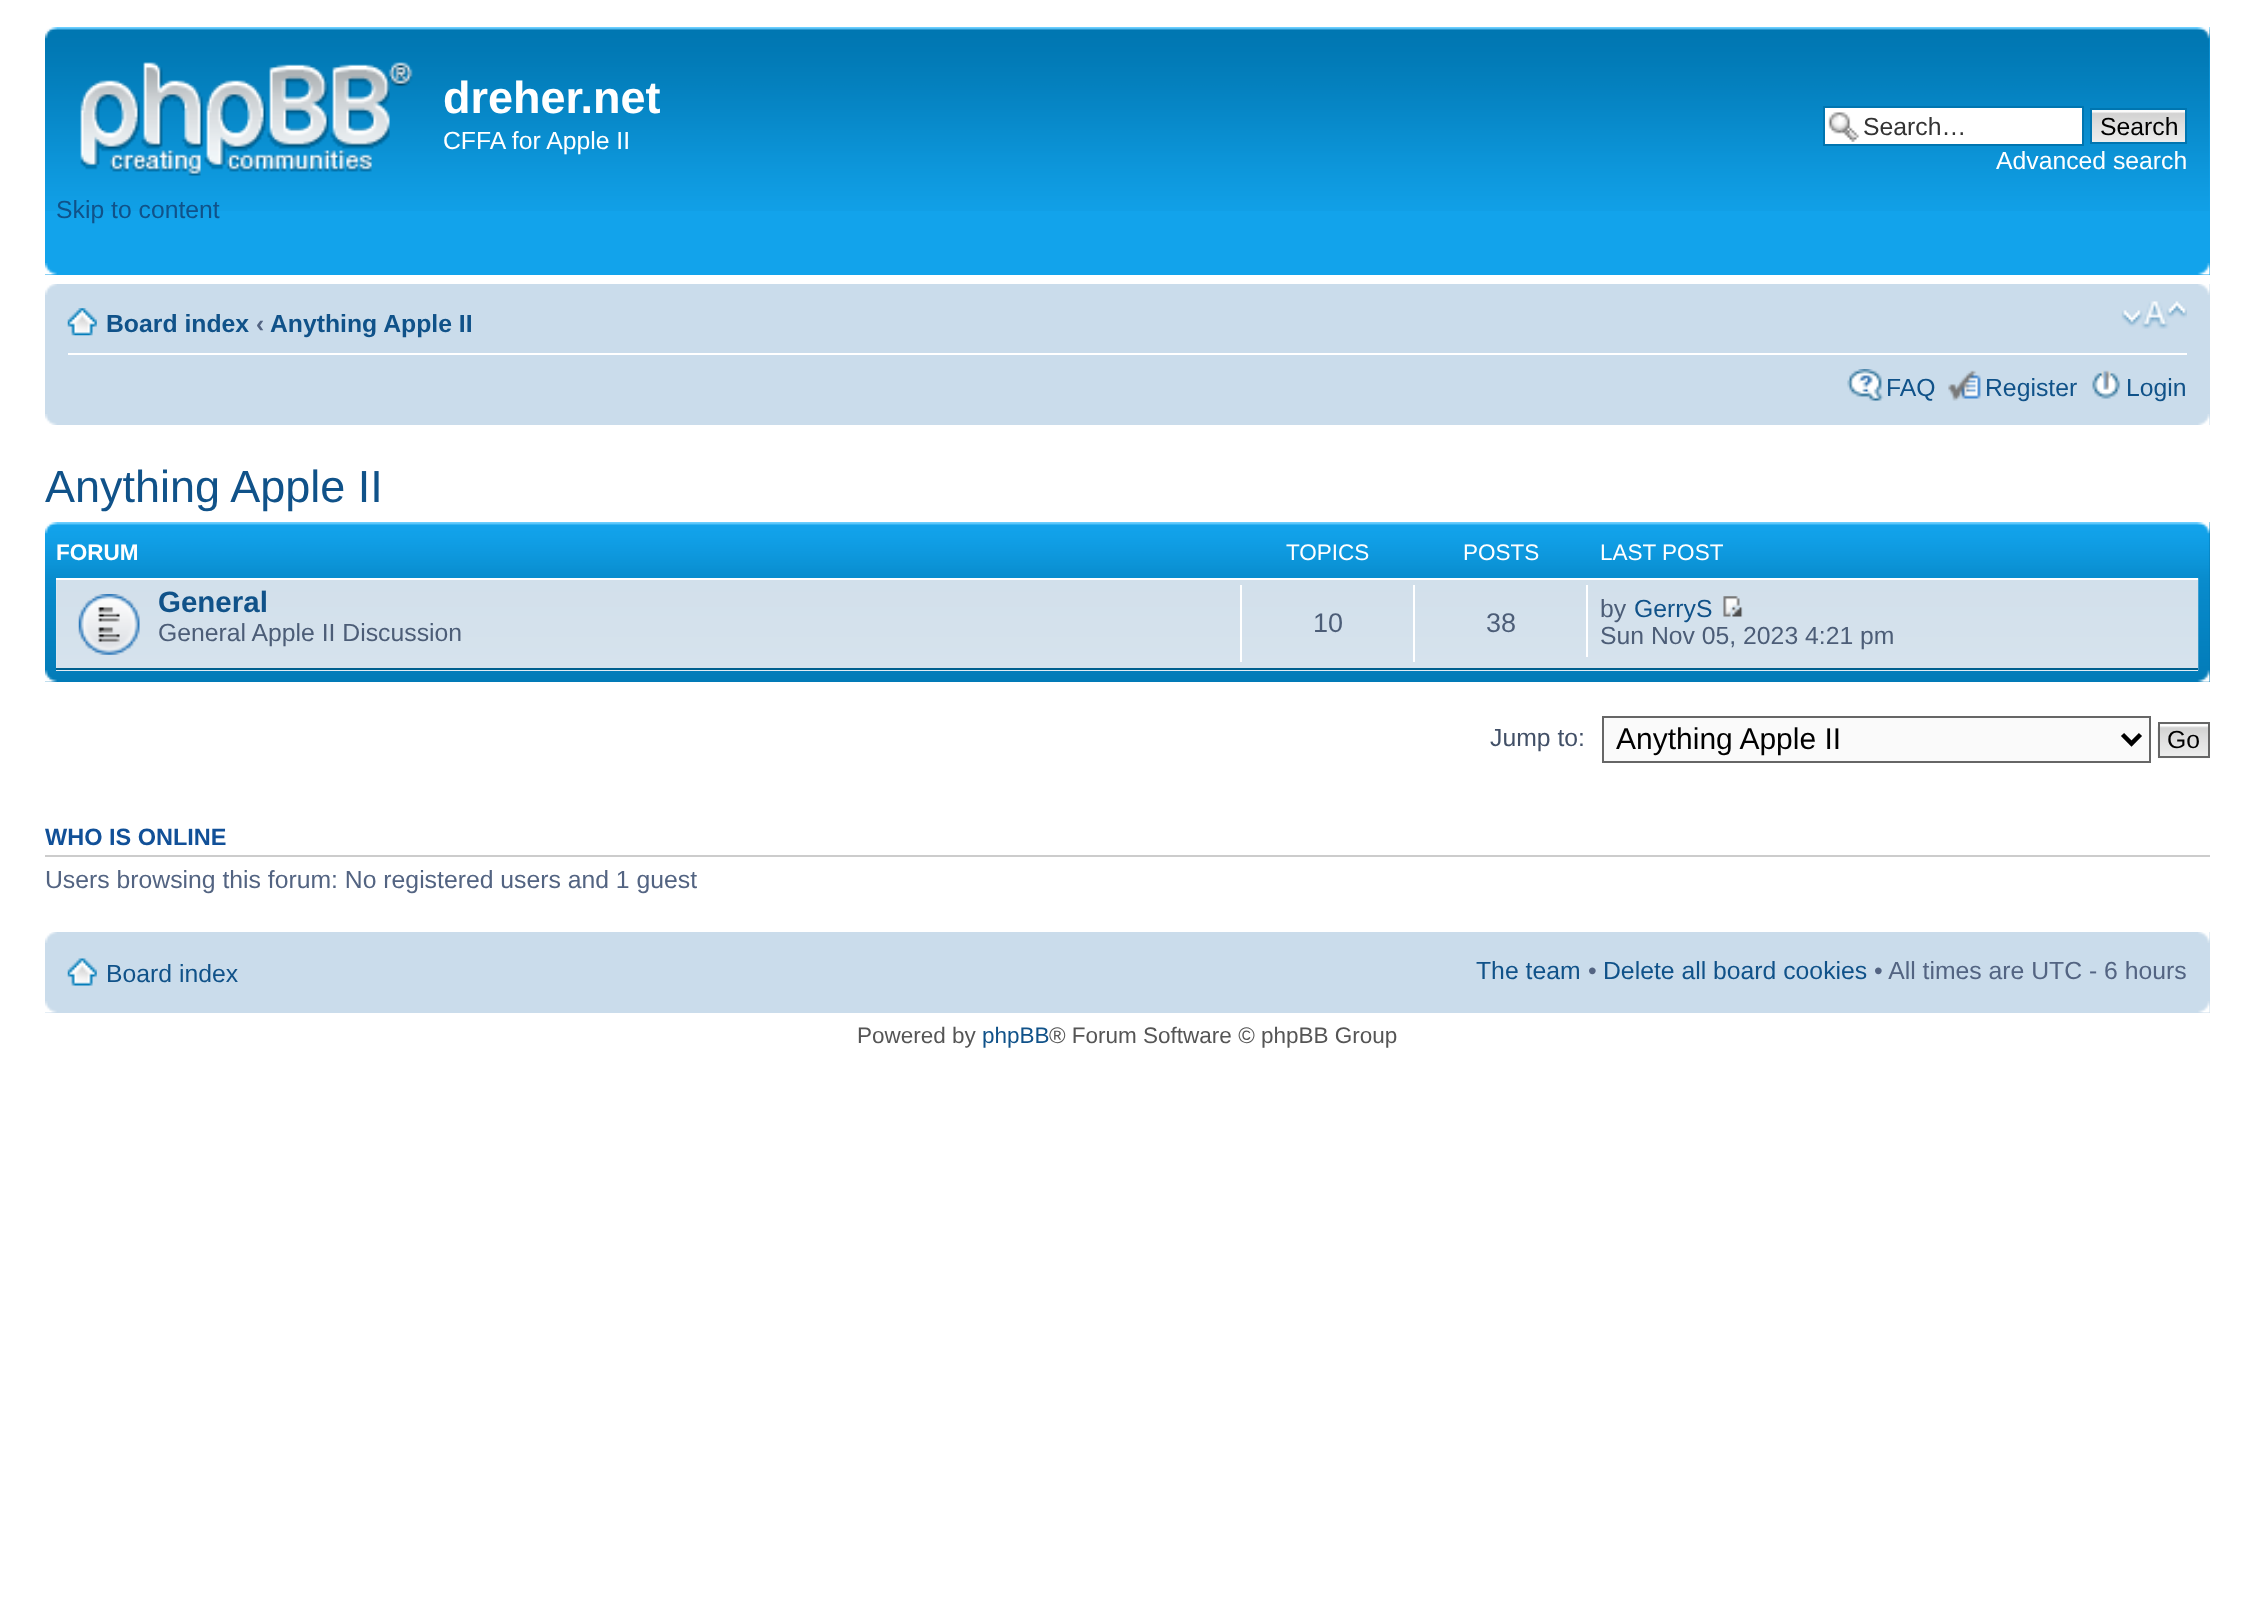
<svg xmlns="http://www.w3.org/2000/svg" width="2254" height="1616">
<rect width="100%" height="100%" fill="#fff"/>
<rect x="45" y="27" width="2165" height="248" fill="#12a3eb"/>
<image x="45" y="27" width="2165" height="184" href="media/1.png"/>
<image x="45" y="27" width="12" height="12" href="media/2.png"/>
<image x="2197" y="27" width="13" height="12" href="media/3.png"/>
<image x="80" y="62" width="333" height="114" href="media/4.png"/>
<text x="443" y="113" style="font-family:Liberation Sans;font-size:45px;font-weight:bold;fill:#fff">dreher.net</text>
<text x="443" y="149" style="font-family:Liberation Sans;font-size:24.75px;fill:#fff">CFFA for Apple II</text>
<text x="56" y="218" style="font-family:Liberation Sans;font-size:24.75px;fill:#105289">Skip to content</text>
<rect x="1825" y="108" width="257" height="36" fill="#fff"/>
<image x="1828" y="112" width="32" height="30" href="media/5.png"/>
<rect x="1824" y="107" width="259" height="38" fill="none" stroke="#0075b0" stroke-width="2"/>
<text x="1863" y="135" style="font-family:Liberation Sans;font-size:24.75px;fill:#333">Search…</text>
<rect x="2092" y="110" width="93" height="2" fill="#fafafa"/>
<image x="2092" y="112" width="93" height="30" href="media/6.png"/>
<rect x="2091" y="109" width="95" height="34" fill="none" stroke="#0075b0" stroke-width="2"/>
<text x="2100" y="135" style="font-family:Liberation Sans;font-size:24.75px;fill:#000">Search</text>
<text x="1996" y="169" style="font-family:Liberation Sans;font-size:24.75px;fill:#fff">Advanced search</text>
<image x="45" y="263" width="12" height="12" href="media/7.png"/>
<image x="2197" y="263" width="13" height="12" href="media/8.png"/>
<rect x="45" y="284" width="2165" height="141" fill="#cadceb"/>
<image x="45" y="284" width="12" height="11" href="media/9.png"/>
<image x="2198" y="284" width="12" height="11" href="media/10.png"/>
<rect x="68" y="353" width="2119" height="2" fill="#fff"/>
<image x="67" y="308" width="30" height="28" href="media/11.png"/>
<text x="106" y="332" style="font-family:Liberation Sans;font-size:24.75px;font-weight:bold;fill:#105289">Board index</text>
<text x="256" y="332" style="font-family:Liberation Sans;font-size:24.75px;font-weight:bold;fill:#536482">‹</text>
<text x="270" y="332" style="font-family:Liberation Sans;font-size:24.75px;font-weight:bold;fill:#105289">Anything Apple II</text>
<image x="2121" y="301" width="66" height="28" href="media/12.png"/>
<image x="1847" y="369" width="37" height="32" href="media/13.png"/>
<text x="1886" y="396" style="font-family:Liberation Sans;font-size:24.75px;fill:#105289">FAQ</text>
<image x="1948" y="370" width="33" height="31" href="media/14.png"/>
<text x="1985" y="396" style="font-family:Liberation Sans;font-size:24.75px;fill:#105289">Register</text>
<image x="2092" y="370" width="29" height="29" href="media/15.png"/>
<text x="2126" y="396" style="font-family:Liberation Sans;font-size:24.75px;fill:#105289">Login</text>
<image x="45" y="414" width="12" height="11" href="media/16.png"/>
<image x="2198" y="414" width="12" height="11" href="media/17.png"/>
<text x="45" y="502" style="font-family:Liberation Sans;font-size:45px;fill:#105289">Anything Apple II</text>
<rect x="45" y="522" width="2165" height="160" fill="#0076b1"/>
<image x="45" y="522" width="2165" height="160" href="media/18.png"/>
<image x="45" y="522" width="12" height="12" href="media/19.png"/>
<image x="2197" y="522" width="13" height="12" href="media/20.png"/>
<text x="56" y="560" style="font-family:Liberation Sans;font-size:22.5px;font-weight:bold;fill:#fff">FORUM</text>
<text x="1286" y="560" style="font-family:Liberation Sans;font-size:22.5px;fill:#fff">TOPICS</text>
<text x="1463" y="560" style="font-family:Liberation Sans;font-size:22.5px;fill:#fff">POSTS</text>
<text x="1600" y="560" style="font-family:Liberation Sans;font-size:22.5px;fill:#fff">LAST POST</text>
<rect x="56" y="580" width="2142" height="91" fill="#eef5f9"/>
<image x="56" y="578" width="2143" height="93" href="media/21.png"/>
<rect x="56" y="578" width="2142" height="2" fill="#fff"/>
<rect x="56" y="668" width="2142" height="2" fill="#00608f"/>
<image x="78" y="594" width="62" height="61" href="media/22.png"/>
<text x="158" y="612" style="font-family:Liberation Sans;font-size:29.5px;font-weight:bold;fill:#105289">General</text>
<text x="158" y="641" style="font-family:Liberation Sans;font-size:24.75px;fill:#4c5d77">General Apple II Discussion</text>
<rect x="1240" y="585" width="2" height="77" fill="#fff"/>
<text x="1313" y="632" style="font-family:Liberation Sans;font-size:27px;fill:#4c5d77">10</text>
<rect x="1413" y="585" width="2" height="77" fill="#fff"/>
<text x="1486" y="632" style="font-family:Liberation Sans;font-size:27px;fill:#4c5d77">38</text>
<rect x="1586" y="585" width="2" height="72" fill="#fff"/>
<text x="1600" y="617" style="font-family:Liberation Sans;font-size:24.75px;fill:#4c5d77">by</text>
<text x="1634" y="617" style="font-family:Liberation Sans;font-size:24.75px;fill:#105289">GerryS</text>
<image x="1723" y="596" width="20" height="21" href="media/23.png"/>
<text x="1600" y="644" style="font-family:Liberation Sans;font-size:24.75px;fill:#4c5d77">Sun Nov 05, 2023 4:21 pm</text>
<image x="45" y="670" width="12" height="12" href="media/24.png"/>
<image x="2197" y="670" width="13" height="12" href="media/25.png"/>
<text x="1490" y="746" style="font-family:Liberation Sans;font-size:24.75px;fill:#425067">Jump to:</text>
<rect x="1603" y="717" width="547" height="45" fill="#fafafa" stroke="#666" stroke-width="2"/>
<path d="M2122.5 734.5l9 9l9-9" fill="none" stroke="#000" stroke-width="4.5"/>
<text x="1616" y="749" style="font-family:Liberation Sans;font-size:30px;fill:#000">Anything Apple II</text>
<rect x="2160" y="724" width="48" height="1" fill="#fafafa"/>
<image x="2157" y="725" width="53" height="34" href="media/26.png"/>
<rect x="2159" y="723" width="50" height="34" fill="none" stroke="#666" stroke-width="2"/>
<text x="2167" y="748" style="font-family:Liberation Sans;font-size:24.75px;fill:#000">Go</text>
<rect x="45" y="855" width="2165" height="2" fill="#ccc"/>
<text x="45" y="845" style="font-family:Liberation Sans;font-size:23.5px;font-weight:bold;fill:#115098">WHO IS ONLINE</text>
<text x="45" y="888" style="font-family:Liberation Sans;font-size:24.75px;fill:#536482">Users browsing this forum: No registered users and 1 guest</text>
<rect x="45" y="932" width="2165" height="81" fill="#cadceb"/>
<image x="45" y="932" width="12" height="11" href="media/27.png"/>
<image x="2198" y="932" width="12" height="11" href="media/28.png"/>
<image x="67" y="958" width="30" height="28" href="media/29.png"/>
<text x="106" y="982" style="font-family:Liberation Sans;font-size:24.75px;fill:#105289">Board index</text>
<text x="1476" y="979" style="font-family:Liberation Sans;font-size:24.75px;fill:#105289">The team</text>
<text x="1588" y="979" style="font-family:Liberation Sans;font-size:24.75px;fill:#536482">•</text>
<text x="1603" y="979" style="font-family:Liberation Sans;font-size:24.75px;fill:#105289">Delete all board cookies</text>
<text x="1874" y="979" style="font-family:Liberation Sans;font-size:24.75px;fill:#536482">• All times are UTC - 6 hours</text>
<image x="45" y="1001" width="12" height="12" href="media/30.png"/>
<image x="2198" y="1001" width="12" height="12" href="media/31.png"/>
<text x="857" y="1043" style="font-family:Liberation Sans;font-size:22.5px;fill:#555">Powered by</text>
<text x="982" y="1043" style="font-family:Liberation Sans;font-size:22.5px;fill:#105289">phpBB</text>
<text x="1049" y="1043" style="font-family:Liberation Sans;font-size:22.5px;fill:#555">® Forum Software © phpBB Group</text>
</svg>
